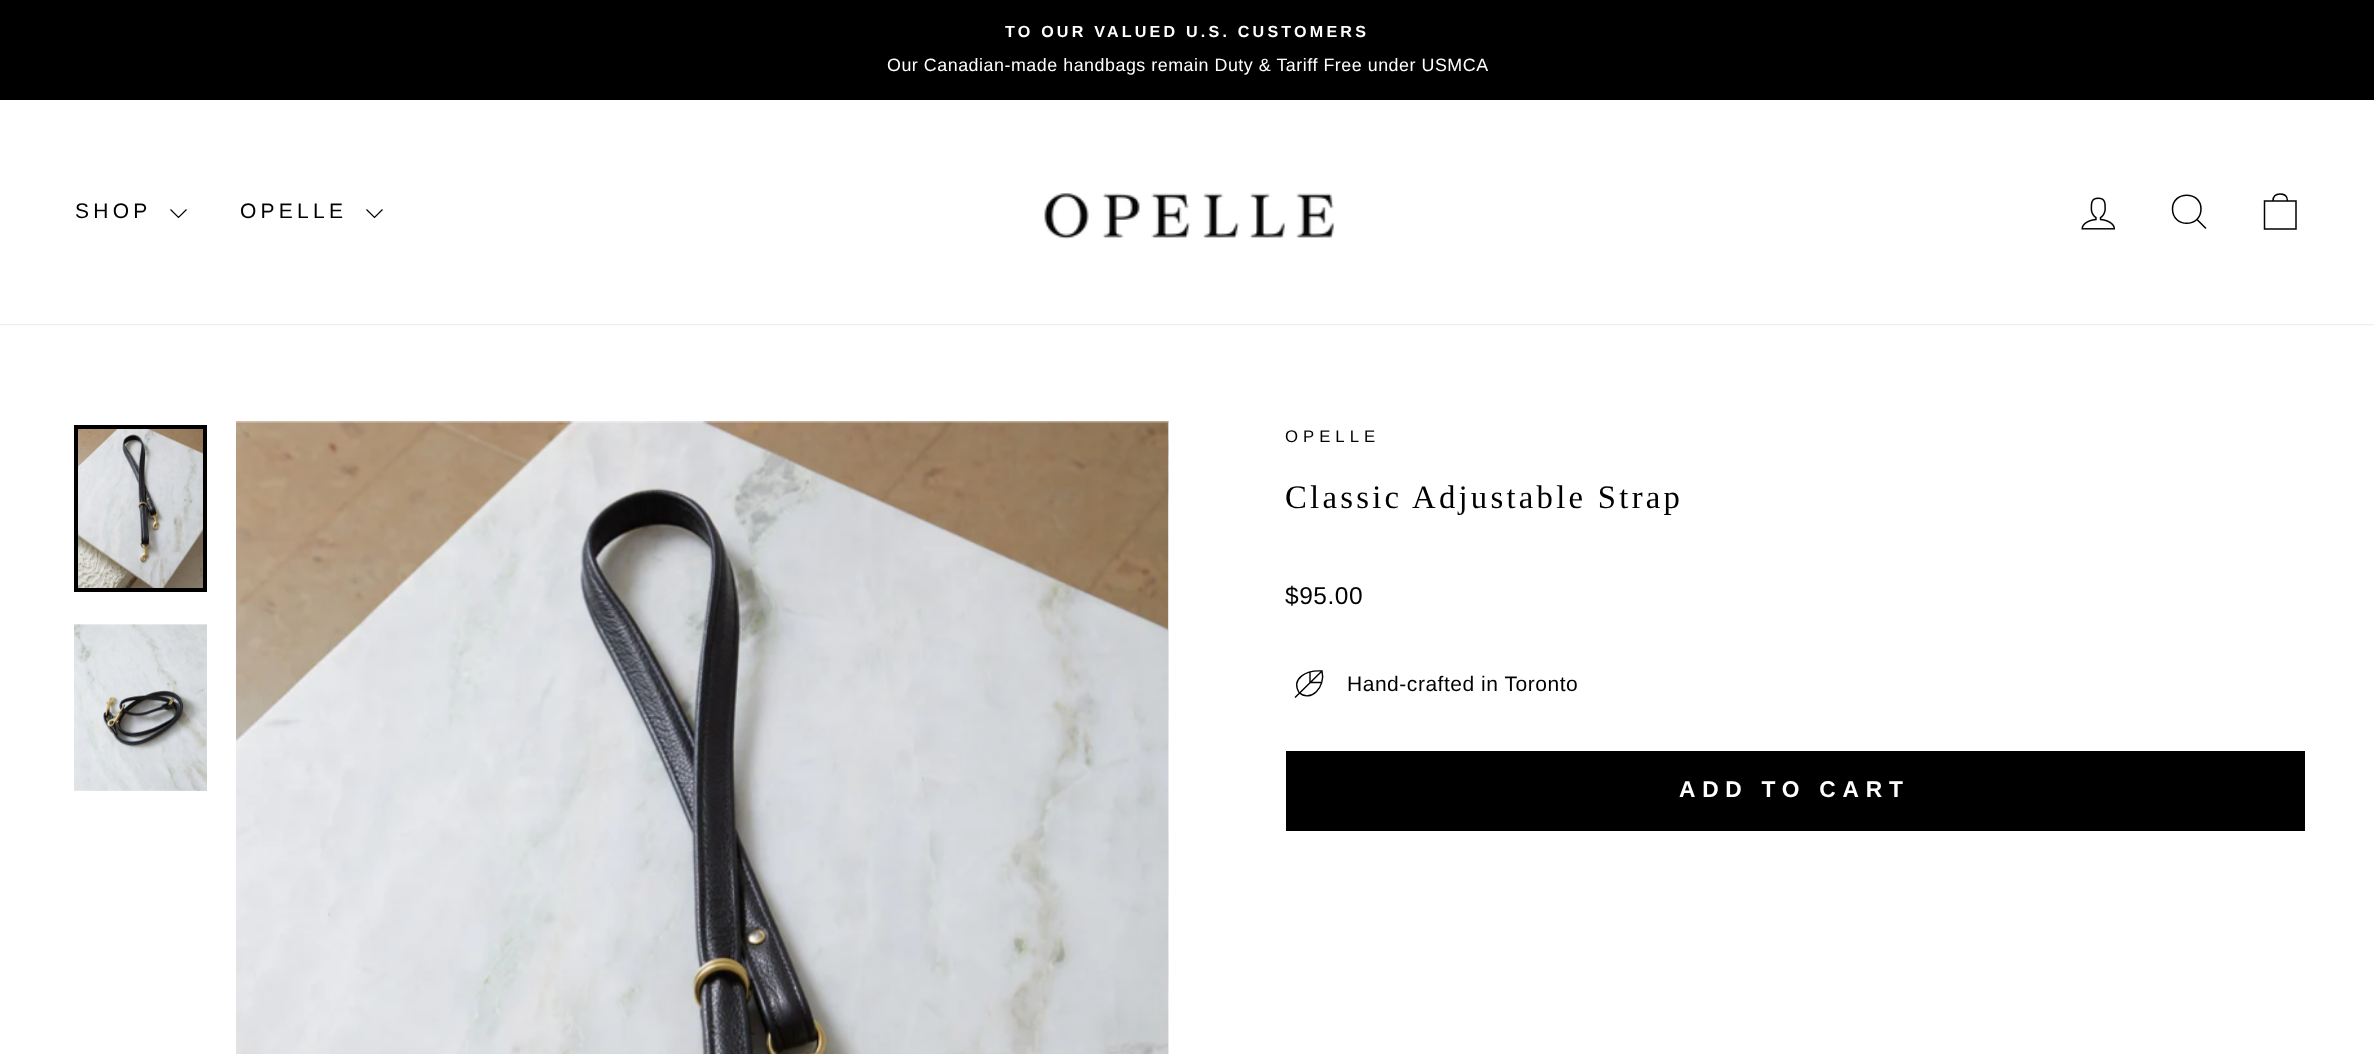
<svg xmlns="http://www.w3.org/2000/svg" width="2374" height="1054">
<rect width="100%" height="100%" fill="#fff"/>
<rect width="2374" height="100" fill="#000"/>
<text x="1005" y="37" style="font-family:Liberation Sans;font-size:16.1px;font-weight:bold;letter-spacing:3.2px;fill:#fff">TO OUR VALUED U.S. CUSTOMERS</text>
<text x="887" y="71" style="font-family:Liberation Sans;font-size:17.85px;letter-spacing:0.53px;fill:#fff">Our Canadian-made handbags remain Duty &amp; Tariff Free under USMCA</text>
<rect y="100" width="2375" height="224" fill="#00000033" filter="blur(1px)"/>
<rect y="100" width="2374" height="224" fill="#fff"/>
<text x="75" y="218" style="font-family:Liberation Sans;font-size:21px;letter-spacing:4.25px;fill:#000">SHOP</text>
<path d="M170.5 209.5l8 8l8-8" fill="none" stroke="#000" stroke-width="1.2"/>
<text x="240" y="218" style="font-family:Liberation Sans;font-size:21px;letter-spacing:4.25px;fill:#000">OPELLE</text>
<path d="M366.5 209.5l8 8l8-8" fill="none" stroke="#000" stroke-width="1.2"/>
<image x="1044" y="193" width="291" height="46" href="media/1.png"/>
<image x="2081" y="197" width="35" height="33" href="media/2.png"/>
<path d="M2201 209c0 19-28.5 19-28.5 0c0-18.5 28.5-18.5 28.5 0zm5 19.5l-9-9" fill="none" stroke="#000" stroke-width="1.5"/>
<path d="M2264.5 201h31.5v28h-31.5zm8.5 0c0-5.5 3-7 7-7c4.5 0 7.5 1.5 7.5 7" fill="none" stroke="#000" stroke-width="1.5"/>
<image x="78" y="429" width="125" height="159" href="media/3.png"/>
<rect x="76" y="427" width="129" height="163" fill="none" stroke="#000" stroke-width="4"/>
<image x="74" y="624" width="133" height="167" href="media/4.png"/>
<image x="236" y="421" width="933" height="633" href="media/5.png"/>
<image x="1168" y="421" width="1" height="633" href="media/6.png"/>
<text x="1285" y="442" style="font-family:Liberation Sans;font-size:16.75px;letter-spacing:5px;fill:#000">OPELLE</text>
<text x="1285" y="508" style="font-family:Liberation Serif;font-size:32.75px;letter-spacing:3.25px;fill:#000">Classic Adjustable Strap</text>
<text x="1285" y="604" style="font-family:Liberation Sans;font-size:24.5px;letter-spacing:0.53px;fill:#000">$95.00</text>
<path d="M1322 671l-27 26.5m15-25.5v10.5h11m1-11.5c4 16-11.5 32-23 21.5c-8-14 7-22.5 23-21.5z" fill="none" stroke="#000" stroke-width="1.4"/>
<text x="1347" y="691" style="font-family:Liberation Sans;font-size:21px;letter-spacing:0.53px;fill:#000">Hand-crafted in Toronto</text>
<rect x="1286" y="751" width="1019" height="80" fill="#000"/>
<text x="1679" y="797" style="font-family:Liberation Sans;font-size:22.75px;font-weight:bold;letter-spacing:6.75px;fill:#fff">ADD TO CART</text>
</svg>
